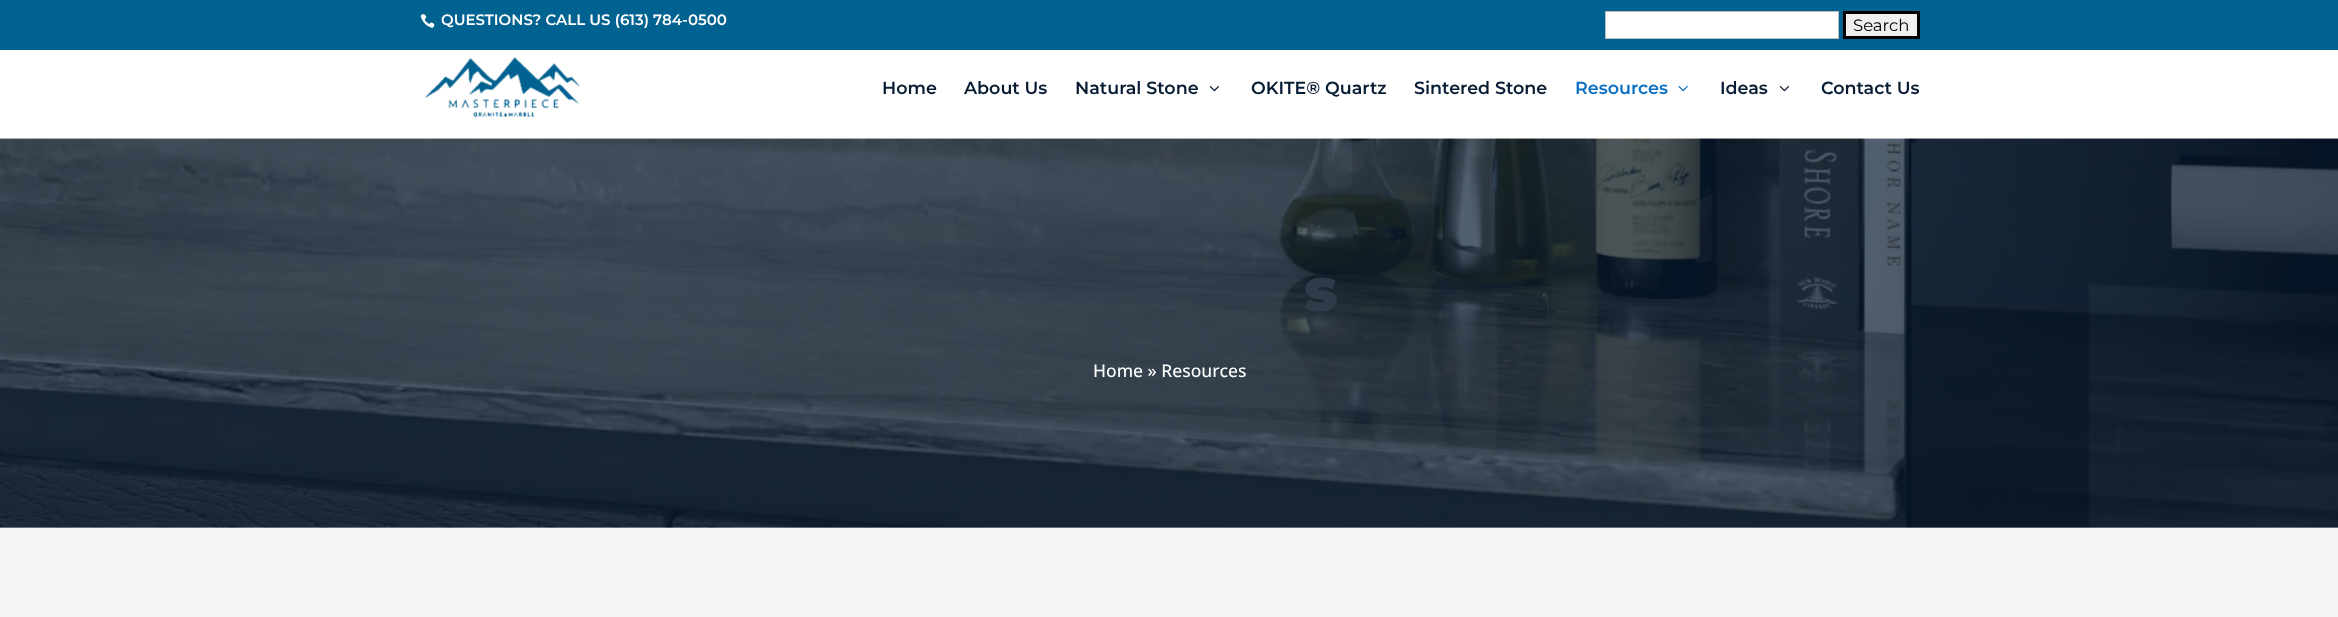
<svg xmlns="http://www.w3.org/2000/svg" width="2338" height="617">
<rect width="100%" height="100%" fill="#fff"/>
<rect width="2338" height="50" fill="#006291"/>
<image x="420" y="14" width="15" height="14" href="media/1.png"/>
<text x="441" y="25" style="font-family:'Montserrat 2';font-size:15px;font-weight:100;fill:#fff">QUESTIONS? CALL US (613) 784-0500</text>
<rect x="1605.5" y="11.5" width="233" height="27" fill="#fff" stroke="#bbb"/>
<rect x="1844.5" y="12.5" width="74" height="25" fill="#efefef" stroke="#000" stroke-width="3"/>
<text x="1853" y="31" style="font-family:'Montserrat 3';font-size:16.5px;font-weight:100;fill:#000">Search</text>
<image x="0" y="138" width="2338" height="390" href="media/5.png"/>
<path d="M0 138v1h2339v-100v99z" fill="#0000001a"/>
<image x="425" y="57" width="155" height="60" href="media/2.png"/>
<text x="882" y="94" style="font-family:'Montserrat 2';font-size:17.5px;font-weight:100;fill:#071c33">Home</text>
<text x="964" y="94" style="font-family:'Montserrat 2';font-size:17.5px;font-weight:100;fill:#071c33">About Us</text>
<text x="1075" y="94" style="font-family:'Montserrat 2';font-size:17.5px;font-weight:100;fill:#071c33">Natural Stone</text>
<image x="1209" y="86" width="10" height="6" href="media/3.png"/>
<text x="1251" y="94" style="font-family:'Montserrat 2';font-size:17.5px;font-weight:100;fill:#071c33">OKITE® Quartz</text>
<text x="1414" y="94" style="font-family:'Montserrat 2';font-size:17.5px;font-weight:100;fill:#071c33">Sintered Stone</text>
<text x="1575" y="94" style="font-family:'Montserrat 2';font-size:17.5px;font-weight:100;fill:#0c71c3">Resources</text>
<image x="1678" y="86" width="10" height="6" href="media/4.png"/>
<text x="1720" y="94" style="font-family:'Montserrat 2';font-size:17.5px;font-weight:100;fill:#071c33">Ideas</text>
<image x="1779" y="86" width="10" height="6" href="media/3.png"/>
<text x="1821" y="94" style="font-family:'Montserrat 2';font-size:17.5px;font-weight:100;fill:#071c33">Contact Us</text>
<text x="1304" y="311" style="font-family:Montserrat;font-size:60px;font-weight:100;fill:#2f3b48">s</text>
<text x="1093" y="377" style="font-family:Open Sans;font-size:17.5px;font-weight:500;fill:#fff">Home » Resources</text>
<rect y="528" width="2338" height="89" fill="#f5f5f5"/>
</svg>
